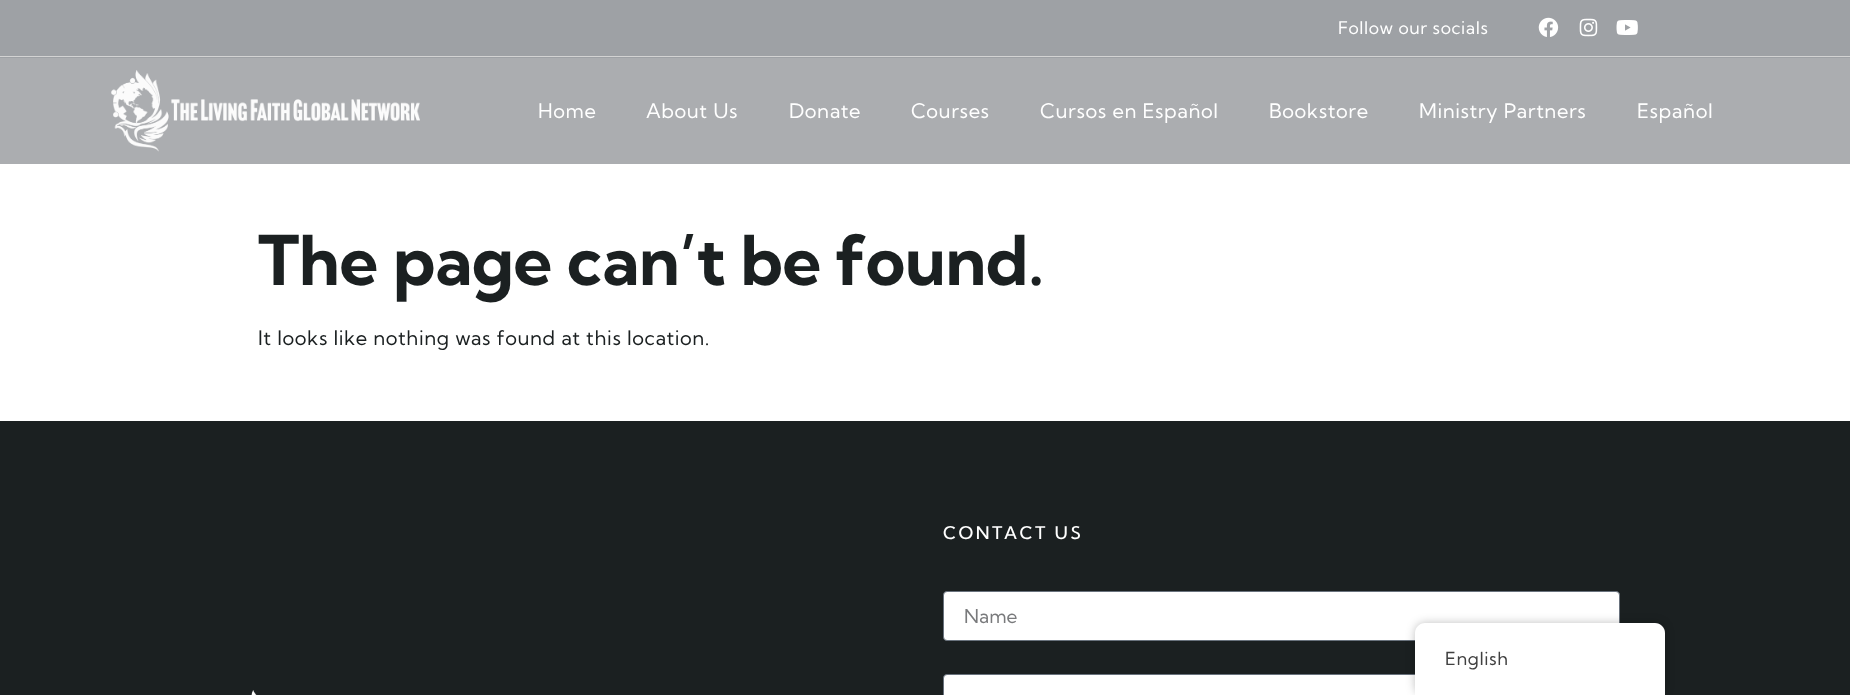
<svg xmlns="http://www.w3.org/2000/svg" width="1850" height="695">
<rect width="100%" height="100%" fill="#fff"/>
<rect width="1850" height="58" fill="#9ea1a5"/>
<rect y="56" width="1850" height="1" fill="#d3d3d3"/>
<text x="1338" y="34" style="font-family:Kumbh Sans;font-size:17.5px;letter-spacing:0.6px;fill:#fff">Follow our socials</text>
<image x="1538" y="17" width="21" height="20" href="media/1.png"/>
<image x="1579" y="18" width="19" height="19" href="media/2.png"/>
<image x="1616" y="20" width="22" height="15" href="media/3.png"/>
<rect y="58" width="1850" height="106" fill="#abadb0"/>
<image x="111" y="70" width="309" height="82" href="media/4.png"/>
<text x="538" y="118" style="font-family:Kumbh Sans;font-size:20px;letter-spacing:0.6px;fill:#fff">Home</text>
<text x="646" y="118" style="font-family:Kumbh Sans;font-size:20px;letter-spacing:0.6px;fill:#fff">About Us</text>
<text x="789" y="118" style="font-family:Kumbh Sans;font-size:20px;letter-spacing:0.6px;fill:#fff">Donate</text>
<text x="911" y="118" style="font-family:Kumbh Sans;font-size:20px;letter-spacing:0.6px;fill:#fff">Courses</text>
<text x="1040" y="118" style="font-family:Kumbh Sans;font-size:20px;letter-spacing:0.6px;fill:#fff">Cursos en Español</text>
<text x="1269" y="118" style="font-family:Kumbh Sans;font-size:20px;letter-spacing:0.6px;fill:#fff">Bookstore</text>
<text x="1419" y="118" style="font-family:Kumbh Sans;font-size:20px;letter-spacing:0.6px;fill:#fff">Ministry Partners</text>
<text x="1637" y="118" style="font-family:Kumbh Sans;font-size:20px;letter-spacing:0.6px;fill:#fff">Español</text>
<text x="258" y="285" style="font-family:Kumbh Sans;font-size:68.75px;font-weight:bold;letter-spacing:-0.6px;fill:#1b2021">The page can’t be found.</text>
<text x="258" y="345" style="font-family:Kumbh Sans;font-size:20px;letter-spacing:0.6px;fill:#1b2021">It looks like nothing was found at this location.</text>
<rect y="421" width="1850" height="274" fill="#1b2021"/>
<text x="943" y="539" style="font-family:Kumbh Sans;font-size:17.5px;font-weight:500;letter-spacing:2.5px;fill:#fff">CONTACT US</text>
<rect x="943.5" y="591.5" width="676" height="49" rx="3.5" fill="#fff" stroke="#69727d"/>
<text x="964" y="623" style="font-family:Kumbh Sans;font-size:19px;fill:#797a7c">Name</text>
<rect x="943.5" y="674.5" width="676" height="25" rx="3.5" fill="#fff" stroke="#69727d"/>
<image x="251" y="690" width="6" height="5" href="media/5.png"/>
<rect x="1415" y="623" width="250" height="72" rx="10" fill="#00000040" filter="blur(5px)"/>
<path d="M1425 623h230c5.5 0 10 4.5 10 10v62h-250v-62c0-5.5 4.5-10 10-10z" fill="#fff"/>
<text x="1445" y="665" style="font-family:Kumbh Sans;font-size:18px;letter-spacing:0.6px;fill:#404040">English</text>
</svg>
